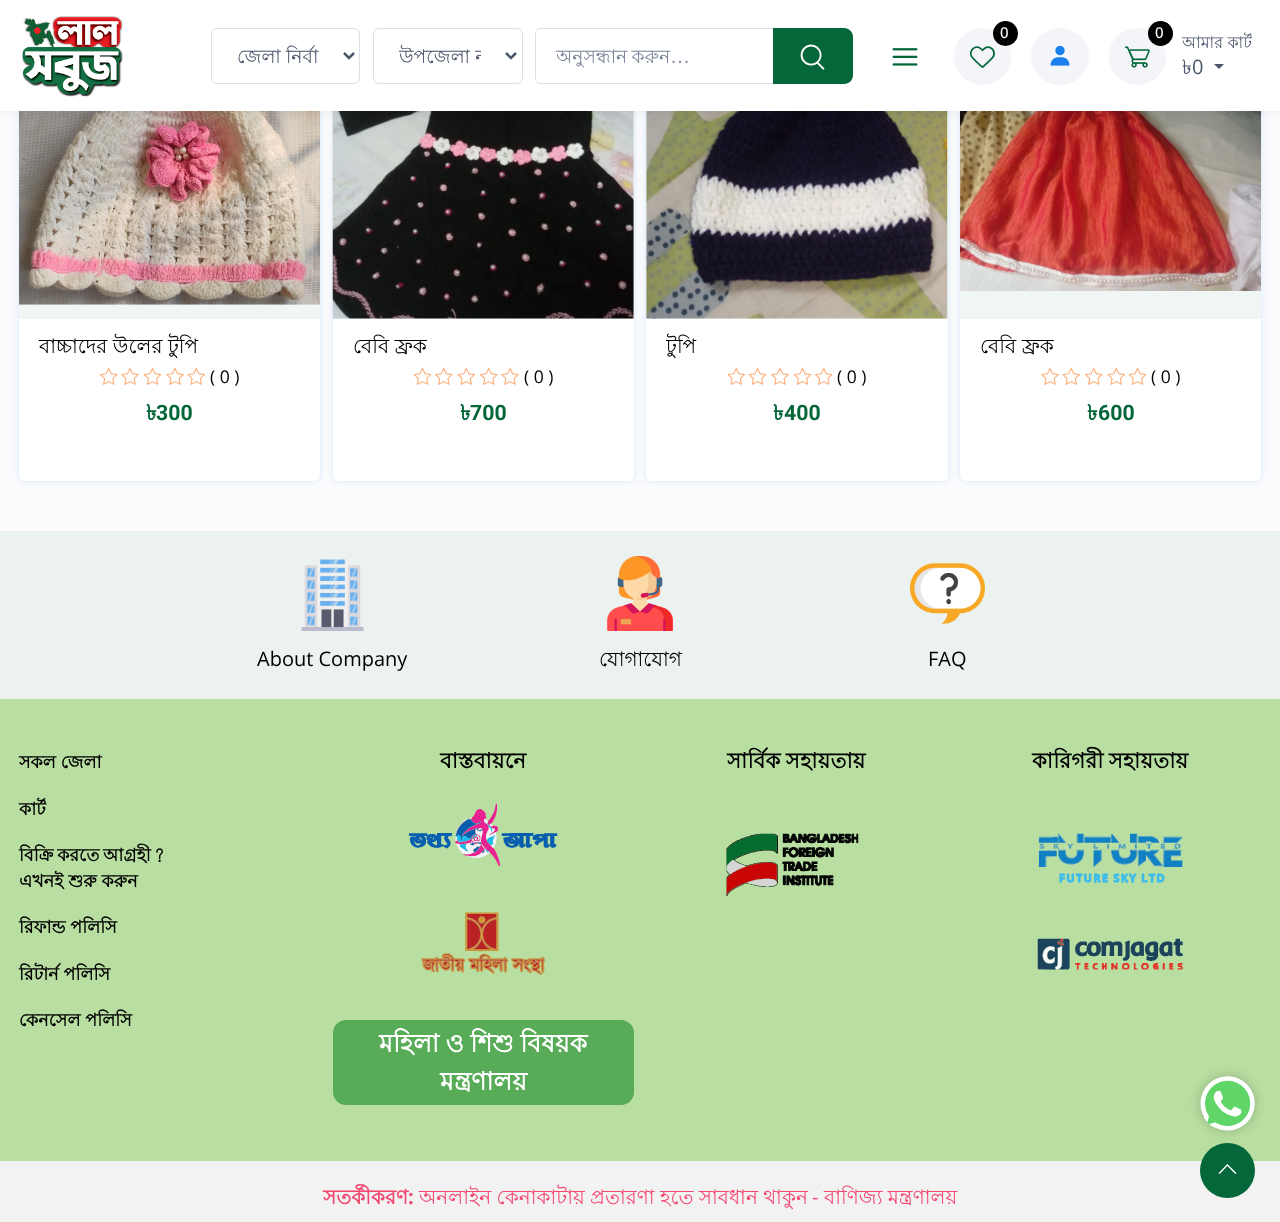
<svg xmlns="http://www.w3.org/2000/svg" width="1280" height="1222">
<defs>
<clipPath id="clip1"><rect x="238" y="43" width="81" height="27"/></clipPath>
<clipPath id="clip2"><rect x="399" y="43" width="82" height="27"/></clipPath>
<clipPath id="clip3"><rect x="666" y="331" width="282" height="30"/></clipPath>
</defs>
<rect width="100%" height="100%" fill="#fbfbfd"/>
<rect x="19" y="45" width="301" height="436" rx="6" fill="#0071dc26" filter="blur(3px)"/>
<rect x="19" y="304" width="301" height="15" fill="#eff6f3"/>
<image x="19" y="111" width="301" height="194" href="media/7.png"/>
<rect x="333" y="45" width="301" height="436" rx="6" fill="#0071dc26" filter="blur(3px)"/>
<rect x="333" y="111" width="301" height="208" fill="#eff6f3"/>
<image x="332" y="111" width="302" height="208" href="media/12.png"/>
<rect x="646" y="45" width="302" height="436" rx="6" fill="#0071dc26" filter="blur(3px)"/>
<rect x="646" y="111" width="302" height="208" fill="#eff6f3"/>
<image x="646" y="111" width="302" height="208" href="media/13.png"/>
<rect x="960" y="45" width="301" height="436" rx="6" fill="#0071dc26" filter="blur(3px)"/>
<image x="960" y="111" width="301" height="180" href="media/14.png"/>
<rect y="1" width="1280" height="112" fill="#0000000d" filter="blur(4.5px)"/>
<rect width="1280" height="111" fill="#fff"/>
<image x="22" y="16" width="101" height="81" href="media/1.png"/>
<rect x="211.5" y="28.5" width="148" height="55" rx="5.5" fill="none" stroke="#dae1e7"/>
<path d="M344 53l5 5l5-5" fill="none" stroke="#4b566b" stroke-width="2.5"/>
<g clip-path="url(#clip1)">
<text x="237" y="63" style="font-family:Lohit Bengali;font-size:18.75px;fill:#4b566b">জেলা নির্বা</text>
</g>
<rect x="373.5" y="28.5" width="149" height="55" rx="5.5" fill="none" stroke="#dae1e7"/>
<path d="M506 53l5 5l5-5" fill="none" stroke="#4b566b" stroke-width="2.5"/>
<g clip-path="url(#clip2)">
<text x="399" y="63" style="font-family:Lohit Bengali;font-size:18.75px;fill:#4b566b">উপজেলা ন</text>
</g>
<rect x="535.5" y="28.5" width="310" height="55" rx="5.5" fill="none" stroke="#dae1e7"/>
<text x="556" y="63" word-spacing="-1" style="font-family:Lohit Bengali;font-size:18.75px;fill:#7d879c">অনুসন্ধান করুন...</text>
<path d="M773 28h71c5 0 9 4 9 9v38c0 5-4 9-9 9h-71z" fill="#046739"/>
<image x="800" y="44" width="25" height="26" href="media/2.png"/>
<image x="892" y="48" width="26" height="18" href="media/3.png"/>
<circle cx="982.5" cy="56.5" r="28.5" fill="#f3f5f9"/>
<circle cx="1005.5" cy="33.5" r="12.5" fill="#000"/>
<text x="1000" y="38" style="font-family:Open Sans;font-size:15px;font-weight:500;fill:#fff">0</text>
<image x="970" y="46" width="25" height="22" href="media/4.png"/>
<rect x="1031" y="28" width="58" height="57" rx="28.5" fill="#f3f5f9"/>
<image x="1050" y="45" width="20" height="21" href="media/5.png"/>
<circle cx="1137.5" cy="56.5" r="28.5" fill="#f3f5f9"/>
<circle cx="1160.5" cy="33.5" r="12.5" fill="#000"/>
<text x="1155" y="38" style="font-family:Open Sans;font-size:15px;font-weight:500;fill:#fff">0</text>
<image x="1125" y="46" width="25" height="22" href="media/6.png"/>
<text x="1182" y="48" style="font-family:Lohit Bengali;font-size:16px;fill:#4b566b">আমার কার্ট</text>
<text x="1182" y="74" style="font-family:Lohit Bengali;font-size:20px;fill:#4b566b">৳</text>
<text x="1192" y="74" style="font-family:Open Sans;font-size:20px;fill:#4b566b">0</text>
<path d="M1214 64h10l-5 5z" fill="#4b566b"/>
<path d="M19 319h301v156c0 3.5-2.5 6-6 6h-289c-3.5 0-6-2.5-6-6z" fill="#fff"/>
<text x="39" y="353" style="font-family:Lohit Bengali;font-size:20px;fill:#000">বাচ্চাদের উলের টুপি</text>
<image x="100" y="368" width="18" height="17" href="media/8.png"/>
<image x="121" y="368" width="18" height="17" href="media/9.png"/>
<image x="143" y="368" width="19" height="17" href="media/10.png"/>
<image x="166" y="368" width="18" height="17" href="media/9.png"/>
<image x="187" y="368" width="18" height="17" href="media/11.png"/>
<text x="210" y="383" style="font-family:Open Sans;font-size:17.5px;fill:#000">( 0 )</text>
<text x="146" y="420" style="font-family:Lohit Bengali;font-size:21.25px;font-weight:bold;fill:#046739">৳</text>
<text x="156" y="420" style="font-family:Roboto;font-size:21.25px;font-weight:bold;fill:#046739">300</text>
<path d="M333 319h301v156c0 3.5-2.5 6-6 6h-289c-3.5 0-6-2.5-6-6z" fill="#fff"/>
<text x="353" y="353" style="font-family:Lohit Bengali;font-size:20px;fill:#000">বেবি ফ্রক</text>
<image x="413" y="368" width="19" height="17" href="media/10.png"/>
<image x="435" y="368" width="18" height="17" href="media/8.png"/>
<image x="457" y="368" width="18" height="17" href="media/11.png"/>
<image x="480" y="368" width="18" height="17" href="media/8.png"/>
<image x="501" y="368" width="18" height="17" href="media/9.png"/>
<text x="524" y="383" style="font-family:Open Sans;font-size:17.5px;fill:#000">( 0 )</text>
<text x="460" y="420" style="font-family:Lohit Bengali;font-size:21.25px;font-weight:bold;fill:#046739">৳</text>
<text x="470" y="420" style="font-family:Roboto;font-size:21.25px;font-weight:bold;fill:#046739">700</text>
<path d="M646 319h302v156c0 3.5-2.5 6-6 6h-290c-3.5 0-6-2.5-6-6z" fill="#fff"/>
<g clip-path="url(#clip3)">
<text x="666" y="353" style="font-family:Lohit Bengali;font-size:20px;fill:#000">টুপি</text>
</g>
<image x="727" y="368" width="18" height="17" href="media/11.png"/>
<image x="748" y="368" width="19" height="17" href="media/10.png"/>
<image x="771" y="368" width="18" height="17" href="media/9.png"/>
<image x="793" y="368" width="19" height="17" href="media/10.png"/>
<image x="815" y="368" width="18" height="17" href="media/8.png"/>
<text x="837" y="383" style="font-family:Open Sans;font-size:17.5px;fill:#000">( 0 )</text>
<text x="773" y="420" style="font-family:Lohit Bengali;font-size:21.25px;font-weight:bold;fill:#046739">৳</text>
<text x="784" y="420" style="font-family:Roboto;font-size:21.25px;font-weight:bold;fill:#046739">400</text>
<rect x="960" y="291" width="301" height="28" fill="#eff6f3"/>
<path d="M960 319h301v156c0 3.5-2.5 6-6 6h-289c-3.5 0-6-2.5-6-6z" fill="#fff"/>
<text x="980" y="353" style="font-family:Lohit Bengali;font-size:20px;fill:#000">বেবি ফ্রক</text>
<image x="1041" y="368" width="18" height="17" href="media/9.png"/>
<image x="1062" y="368" width="18" height="17" href="media/11.png"/>
<image x="1085" y="368" width="18" height="17" href="media/8.png"/>
<image x="1107" y="368" width="18" height="17" href="media/11.png"/>
<image x="1128" y="368" width="19" height="17" href="media/10.png"/>
<text x="1151" y="383" style="font-family:Open Sans;font-size:17.5px;fill:#000">( 0 )</text>
<text x="1087" y="420" style="font-family:Lohit Bengali;font-size:21.25px;font-weight:bold;fill:#046739">৳</text>
<text x="1098" y="420" style="font-family:Roboto;font-size:21.25px;font-weight:bold;fill:#046739">600</text>
<rect y="531" width="1280" height="168" fill="#ecf2f0"/>
<image x="301" y="559" width="63" height="72" href="media/15.png"/>
<text x="257" y="666" style="font-family:Open Sans;font-size:20px;fill:#000">About Company</text>
<image x="607" y="556" width="67" height="75" href="media/16.png"/>
<text x="599" y="666" style="font-family:Lohit Bengali;font-size:20px;fill:#000">যোগাযোগ</text>
<image x="910" y="563" width="75" height="61" href="media/17.png"/>
<text x="928" y="666" style="font-family:Open Sans;font-size:20px;fill:#000">FAQ</text>
<rect y="699" width="1280" height="462" fill="#b8dfa1"/>
<text x="19" y="768" style="font-family:Lohit Bengali;font-size:17.5px;font-weight:bold;fill:#000">সকল জেলা</text>
<text x="19" y="815" style="font-family:Lohit Bengali;font-size:17.5px;font-weight:bold;fill:#000">কার্ট</text>
<text x="19" y="861" word-spacing="-1" style="font-family:Lohit Bengali;font-size:17.5px;font-weight:bold;fill:#000">বিক্রি করতে আগ্রহী?</text>
<text x="19" y="887" style="font-family:Lohit Bengali;font-size:17.5px;font-weight:bold;fill:#000">এখনই শুরু করুন</text>
<text x="19" y="933" style="font-family:Lohit Bengali;font-size:17.5px;font-weight:bold;fill:#000">রিফান্ড পলিসি</text>
<text x="19" y="980" style="font-family:Lohit Bengali;font-size:17.5px;font-weight:bold;fill:#000">রিটার্ন পলিসি</text>
<text x="19" y="1026" style="font-family:Lohit Bengali;font-size:17.5px;font-weight:bold;fill:#000">কেনসেল পলিসি</text>
<text x="440" y="768" style="font-family:Lohit Bengali;font-size:21.25px;font-weight:bold;letter-spacing:0.25px;fill:#000">বাস্তবায়নে</text>
<image x="408" y="803" width="150" height="63" href="media/18.png"/>
<image x="421" y="912" width="124" height="63" href="media/19.png"/>
<rect x="333" y="1020" width="301" height="85" rx="13" fill="#58ac58"/>
<text x="379" y="1052" word-spacing="-0.5" style="font-family:Lohit Bengali;font-size:25px;font-weight:bold;fill:#fff">মহিলা ও শিশু বিষয়ক</text>
<text x="440" y="1090" style="font-family:Lohit Bengali;font-size:25px;font-weight:bold;fill:#fff">মন্ত্রণালয়</text>
<text x="727" y="768" word-spacing="-1" style="font-family:Lohit Bengali;font-size:21.25px;font-weight:bold;letter-spacing:0.25px;fill:#000">সার্বিক সহায়তায়</text>
<image x="726" y="833" width="133" height="63" href="media/20.png"/>
<text x="1032" y="768" word-spacing="-1" style="font-family:Lohit Bengali;font-size:21.25px;font-weight:bold;letter-spacing:0.25px;fill:#000">কারিগরী সহায়তায়</text>
<image x="1038" y="833" width="145" height="50" href="media/21.png"/>
<image x="1037" y="938" width="146" height="32" href="media/22.png"/>
<rect y="1161" width="1280" height="61" fill="#f2f2f2"/>
<text x="323" y="1204" style="font-family:Lohit Bengali;font-size:20px;font-weight:bold;fill:#f34770">সতর্কীকরণ</text>
<text x="408" y="1204" style="font-family:Open Sans;font-size:20px;font-weight:bold;fill:#f34770">:</text>
<text x="419" y="1204" word-spacing="-0.25" style="font-family:Lohit Bengali;font-size:20px;fill:#f34770">অনলাইন কেনাকাটায় প্রতারণা হতে সাবধান থাকুন</text>
<text x="812" y="1204" style="font-family:Open Sans;font-size:20px;fill:#f34770">-</text>
<text x="824" y="1204" word-spacing="-0.25" style="font-family:Lohit Bengali;font-size:20px;fill:#f34770">বাণিজ্য মন্ত্রণালয়</text>
<rect x="1200" y="1076" width="55" height="55" rx="27.5" fill="#00000033" filter="blur(6px)"/>
<image x="1200" y="1076" width="55" height="55" href="media/23.png"/>
<circle cx="1227.5" cy="1170.5" r="27.5" fill="#046739"/>
<image x="1218" y="1164" width="19" height="10" href="media/24.png"/>
</svg>
